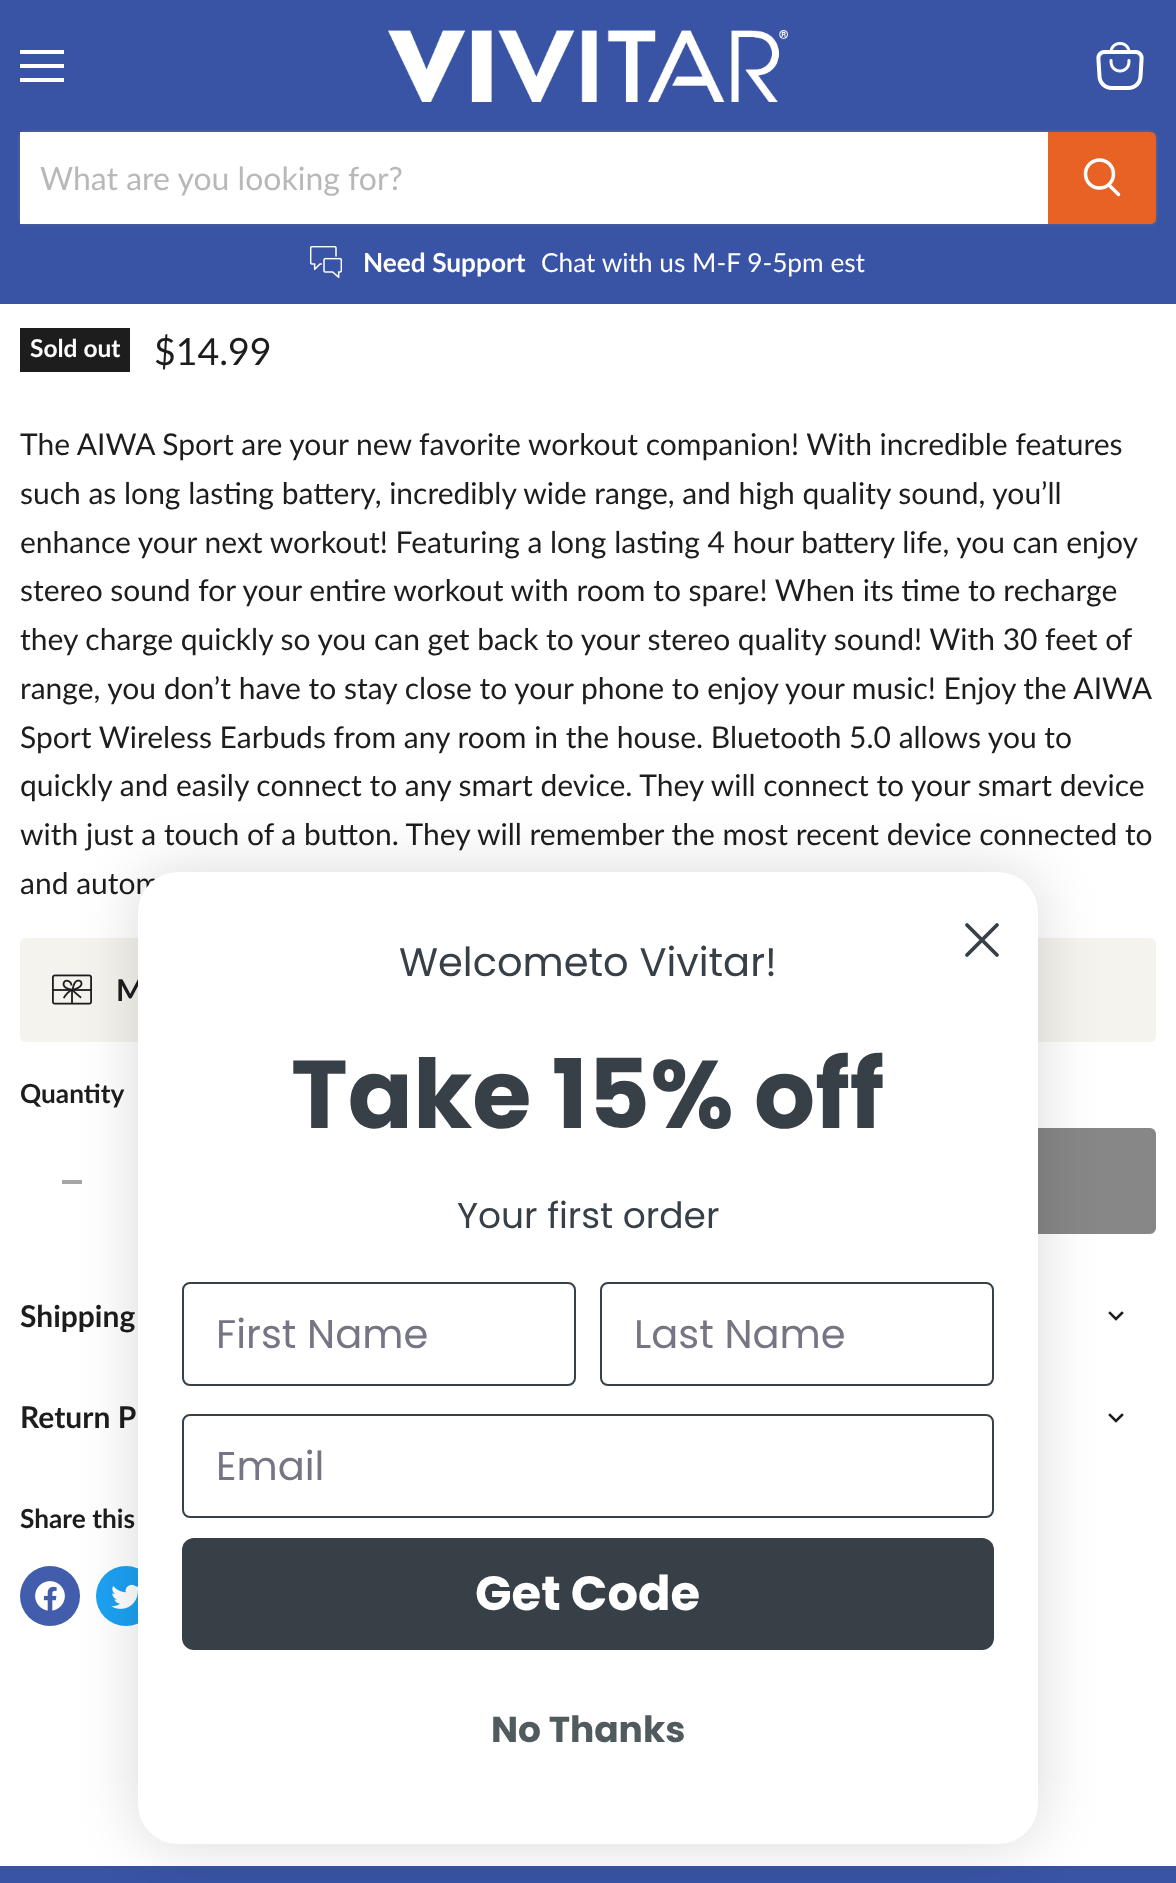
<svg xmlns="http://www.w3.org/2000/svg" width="1176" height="1883">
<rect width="100%" height="100%" fill="#fff"/>
<rect width="1176" height="304" fill="#3953a5"/>
<rect x="20" y="50" width="44" height="4" fill="#fff"/>
<rect x="20" y="64" width="44" height="4" fill="#fff"/>
<rect x="20" y="78" width="44" height="4" fill="#fff"/>
<image x="1096" y="42" width="48" height="48" href="media/1.png"/>
<image x="388" y="30" width="400" height="72" href="media/2.png"/>
<rect x="19" y="131" width="1138" height="94" rx="7" fill="none" stroke="#80808033" stroke-width="2"/>
<rect x="20" y="132" width="1028" height="92" fill="#fff"/>
<text x="40" y="190" style="font-family:Lato;font-size:32px;fill:#b8b8b8">What are you looking for?</text>
<path d="M1049 133h101c3 0 5 2 5 5v80c0 3-2 5-5 5h-101z" fill="#e86225" stroke="#e86225" stroke-width="2"/>
<path d="M1118.5 194.5l-9.5-9.5" fill="none" stroke="#fff" stroke-width="3.5" stroke-linecap="round"/>
<circle cx="1099.5" cy="174" r="14" fill="none" stroke="#fff" stroke-width="3.5"/>
<image x="310" y="246" width="32" height="32" href="media/3.png"/>
<text x="363" y="272" style="font-family:Lato;font-size:26.25px;font-weight:bold;fill:#fff">Need Support</text>
<text x="541" y="272" style="font-family:Lato;font-size:26.25px;fill:#fff">Chat with us M-F 9-5pm est</text>
<rect x="20" y="328" width="110" height="44" fill="#1d1d1d"/>
<text x="30" y="357" style="font-family:Lato;font-size:24.5px;font-weight:bold;fill:#fff">Sold out</text>
<text x="154" y="365" style="font-family:Lato;font-size:37.5px;fill:#1d1d1d">$14.99</text>
<text x="20" y="455" style="font-family:Lato;font-size:30px;fill:#1d1d1d">The AIWA Sport are your new favorite workout companion! With incredible features</text>
<text x="20" y="504" style="font-family:Lato;font-size:30px;fill:#1d1d1d">such as long lasting battery, incredibly wide range, and high quality sound, you’ll</text>
<text x="20" y="553" style="font-family:Lato;font-size:30px;fill:#1d1d1d">enhance your next workout! Featuring a long lasting 4 hour battery life, you can enjoy</text>
<text x="20" y="601" style="font-family:Lato;font-size:30px;fill:#1d1d1d">stereo sound for your entire workout with room to spare! When its time to recharge</text>
<text x="20" y="650" style="font-family:Lato;font-size:30px;fill:#1d1d1d">they charge quickly so you can get back to your stereo quality sound! With 30 feet of</text>
<text x="20" y="699" style="font-family:Lato;font-size:30px;fill:#1d1d1d">range, you don’t have to stay close to your phone to enjoy your music! Enjoy the AIWA</text>
<text x="20" y="748" style="font-family:Lato;font-size:30px;fill:#1d1d1d">Sport Wireless Earbuds from any room in the house. Bluetooth 5.0 allows you to</text>
<text x="20" y="796" style="font-family:Lato;font-size:30px;fill:#1d1d1d">quickly and easily connect to any smart device. They will connect to your smart device</text>
<text x="20" y="845" style="font-family:Lato;font-size:30px;fill:#1d1d1d">with just a touch of a button. They will remember the most recent device connected to</text>
<text x="20" y="894" style="font-family:Lato;font-size:30px;fill:#1d1d1d">and autom</text>
<rect x="20" y="938" width="1136" height="104" rx="6" fill="#f5f3ed"/>
<image x="52" y="974" width="40" height="31" href="media/4.png"/>
<text x="116" y="1001" style="font-family:Lato;font-size:30px;font-weight:bold;fill:#1d1d1d">M</text>
<text x="20" y="1103" style="font-family:Lato;font-size:26.25px;font-weight:bold;fill:#1d1d1d">Quantity</text>
<rect x="62" y="1180" width="20" height="4" fill="#a6a6a6"/>
<rect x="453" y="1129" width="702" height="104" rx="5" fill="#878787" stroke="#878787" stroke-width="2"/>
<text x="20" y="1327" style="font-family:Lato;font-size:30px;font-weight:bold;fill:#1d1d1d">Shipping</text>
<path d="M1116 1319l6-6m-6 6l-6-6" fill="none" stroke="#1d1d1d" stroke-width="2.5" stroke-linecap="square"/>
<text x="20" y="1428" style="font-family:Lato;font-size:30px;font-weight:bold;fill:#1d1d1d">Return P</text>
<path d="M1116 1421l6-6m-6 6l-6-6" fill="none" stroke="#1d1d1d" stroke-width="2.5" stroke-linecap="square"/>
<text x="20" y="1528" style="font-family:Lato;font-size:26.25px;font-weight:bold;fill:#1d1d1d">Share this</text>
<circle cx="50" cy="1596" r="30" fill="#425dab"/>
<image x="35" y="1581" width="30" height="30" href="media/5.png"/>
<circle cx="126" cy="1596" r="30" fill="#1da1f2"/>
<image x="111" y="1584" width="27" height="25" href="media/6.png"/>
<rect y="1866" width="1176" height="17" fill="#3953a5"/>
<rect x="138" y="872" width="900" height="972" rx="40" fill="#00000026" filter="blur(30px)"/>
<rect x="138" y="872" width="900" height="972" rx="40" fill="#fff"/>
<path d="M967 925l30 30m-30 0l30-30z" fill="none" stroke="#373f47" stroke-width="3.8" stroke-linecap="round" stroke-linejoin="round"/>
<text x="399" y="976" style="font-family:Poppins;font-size:40px;fill:#373f47">Welcometo Vivitar!</text>
<text x="291" y="1128" style="font-family:Poppins;font-size:96px;font-weight:bold;fill:#373f47">Take 15% off</text>
<text x="457" y="1228" style="font-family:Poppins;font-size:36px;fill:#373f47">Your first order</text>
<rect x="183" y="1283" width="392" height="102" rx="7" fill="none" stroke="#373f47" stroke-width="2"/>
<text x="216" y="1348" style="font-family:Poppins;font-size:40px;fill:#757584">First Name</text>
<rect x="601" y="1283" width="392" height="102" rx="7" fill="none" stroke="#373f47" stroke-width="2"/>
<text x="634" y="1348" style="font-family:Poppins;font-size:40px;fill:#757584">Last Name</text>
<rect x="183" y="1415" width="810" height="102" rx="7" fill="none" stroke="#373f47" stroke-width="2"/>
<text x="216" y="1480" style="font-family:Poppins;font-size:40px;fill:#757584">Email</text>
<rect x="182" y="1538" width="812" height="112" rx="12" fill="#373f47"/>
<text x="475" y="1610" style="font-family:Poppins;font-size:48px;font-weight:bold;fill:#fff">Get Code</text>
<text x="491" y="1742" style="font-family:Poppins;font-size:36px;font-weight:bold;fill:#505b5e">No Thanks</text>
</svg>
